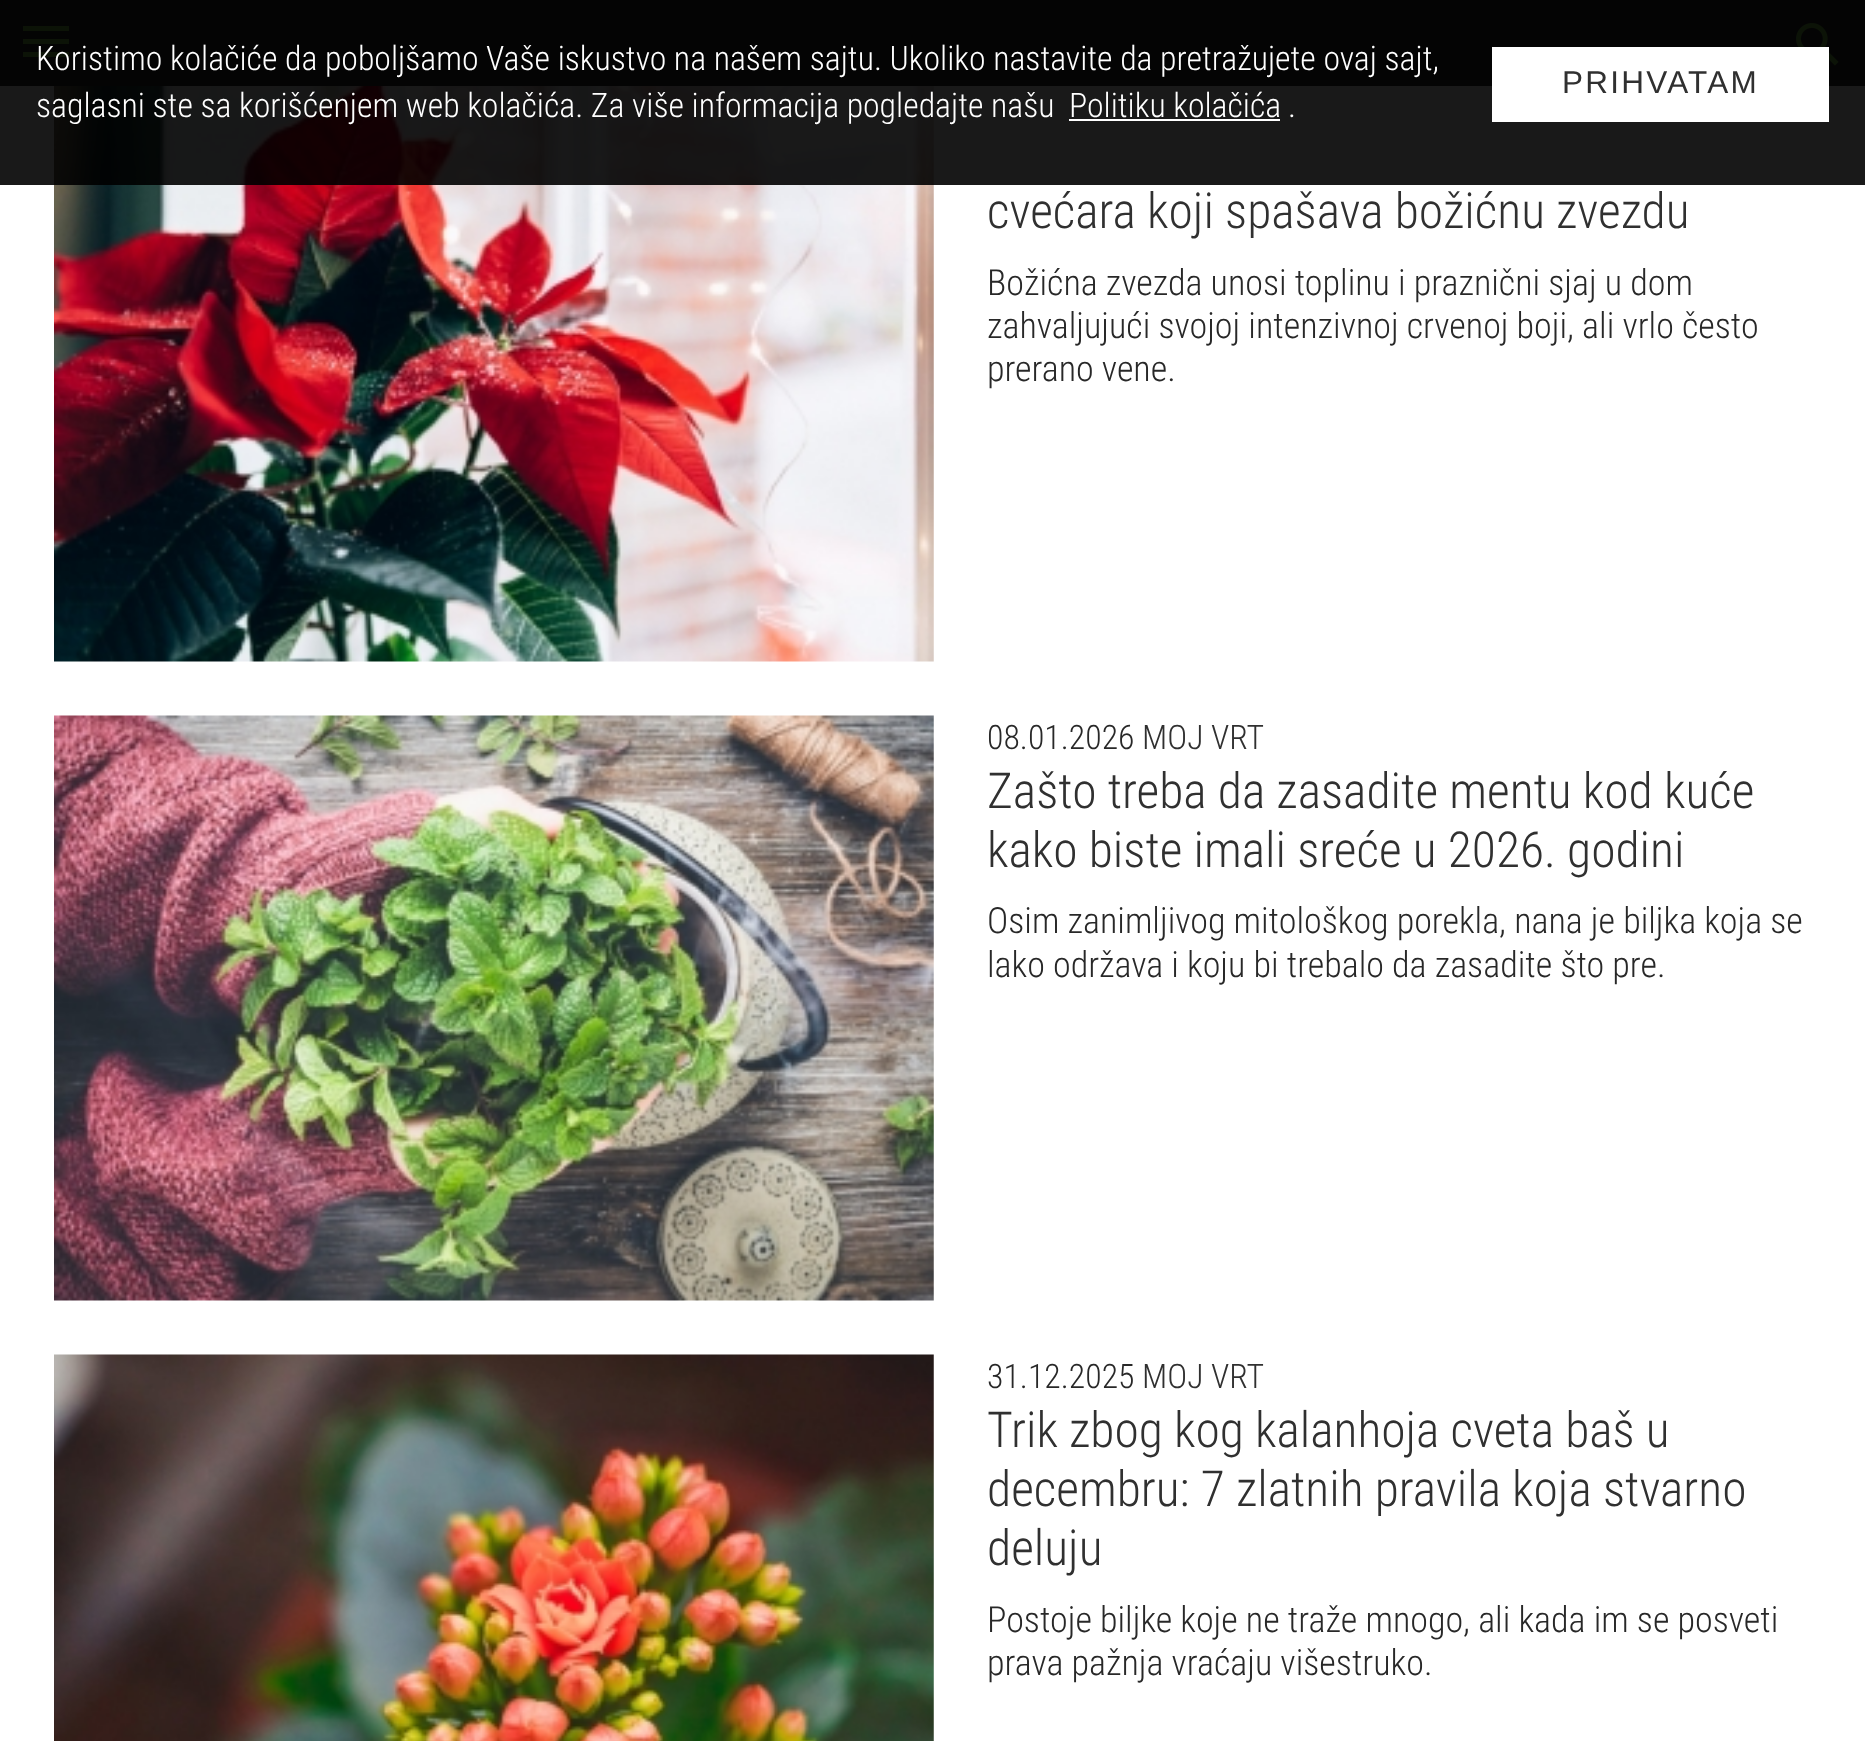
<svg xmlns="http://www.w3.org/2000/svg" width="1865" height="1741">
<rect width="100%" height="100%" fill="#fff"/>
<rect width="1865" height="86" fill="#303030"/>
<path d="M23 26h46v5h-46v-5m0 13h46v5h-46v-5m0 13h46v5h-46z" fill="#7ac14b"/>
<image x="1796" y="23" width="43" height="43" href="media/1.png"/>
<image x="54" y="86" width="880" height="576" href="media/2.png"/>
<rect width="1865" height="185" fill="#000000e6"/>
<text x="36" y="70" style="font-family:Roboto Condensed;font-size:33.75px;font-weight:300;fill:#fff">Koristimo kolačiće da poboljšamo Vaše iskustvo na našem sajtu. Ukoliko nastavite da pretražujete ovaj sajt,</text>
<text x="36" y="117" style="font-family:Roboto Condensed;font-size:33.75px;font-weight:300;fill:#fff">saglasni ste sa korišćenjem web kolačića. Za više informacija pogledajte našu</text>
<text x="1069" y="117" style="font-family:Roboto Condensed;font-size:33.75px;font-weight:300;fill:#fff">Politiku kolačića</text>
<rect x="1069" y="119" width="211" height="2" fill="#fff"/>
<text x="1288" y="117" style="font-family:Roboto Condensed;font-size:33.75px;font-weight:300;fill:#fff">.</text>
<rect x="1492" y="47" width="337" height="75" fill="#fff"/>
<text x="1562" y="93" style="font-family:Liberation Sans;font-size:31.5px;letter-spacing:2.25px;fill:#303030">PRIHVATAM</text>
<text x="987" y="228" style="font-family:Roboto Condensed;font-size:49.5px;font-weight:300;fill:#303030">cvećara koji spašava božićnu zvezdu</text>
<text x="987" y="295" style="font-family:Roboto Condensed;font-size:36px;font-weight:300;fill:#282828">Božićna zvezda unosi toplinu i praznični sjaj u dom</text>
<text x="987" y="338" style="font-family:Roboto Condensed;font-size:36px;font-weight:300;fill:#282828">zahvaljujući svojoj intenzivnoj crvenoj boji, ali vrlo često</text>
<text x="987" y="381" style="font-family:Roboto Condensed;font-size:36px;font-weight:300;fill:#282828">prerano vene.</text>
<image x="54" y="715" width="880" height="586" href="media/3.png"/>
<text x="987" y="749" style="font-family:Roboto Condensed;font-size:33.75px;font-weight:300;fill:#282828">08.01.2026</text>
<text x="1142" y="749" style="font-family:Roboto Condensed;font-size:33.75px;font-weight:300;fill:#303030">MOJ VRT</text>
<text x="987" y="808" style="font-family:Roboto Condensed;font-size:49.5px;font-weight:300;fill:#303030">Zašto treba da zasadite mentu kod kuće</text>
<text x="987" y="867" style="font-family:Roboto Condensed;font-size:49.5px;font-weight:300;fill:#303030">kako biste imali sreće u 2026. godini</text>
<text x="987" y="933" style="font-family:Roboto Condensed;font-size:36px;font-weight:300;fill:#282828">Osim zanimljivog mitološkog porekla, nana je biljka koja se</text>
<text x="987" y="977" style="font-family:Roboto Condensed;font-size:36px;font-weight:300;fill:#282828">lako održava i koju bi trebalo da zasadite što pre.</text>
<image x="54" y="1354" width="880" height="387" href="media/4.png"/>
<text x="987" y="1388" style="font-family:Roboto Condensed;font-size:33.75px;font-weight:300;fill:#282828">31.12.2025</text>
<text x="1142" y="1388" style="font-family:Roboto Condensed;font-size:33.75px;font-weight:300;fill:#303030">MOJ VRT</text>
<text x="987" y="1447" style="font-family:Roboto Condensed;font-size:49.5px;font-weight:300;fill:#303030">Trik zbog kog kalanhoja cveta baš u</text>
<text x="987" y="1506" style="font-family:Roboto Condensed;font-size:49.5px;font-weight:300;fill:#303030">decembru: 7 zlatnih pravila koja stvarno</text>
<text x="987" y="1565" style="font-family:Roboto Condensed;font-size:49.5px;font-weight:300;fill:#303030">deluju</text>
<text x="987" y="1632" style="font-family:Roboto Condensed;font-size:36px;font-weight:300;fill:#282828">Postoje biljke koje ne traže mnogo, ali kada im se posveti</text>
<text x="987" y="1675" style="font-family:Roboto Condensed;font-size:36px;font-weight:300;fill:#282828">prava pažnja vraćaju višestruko.</text>
</svg>
